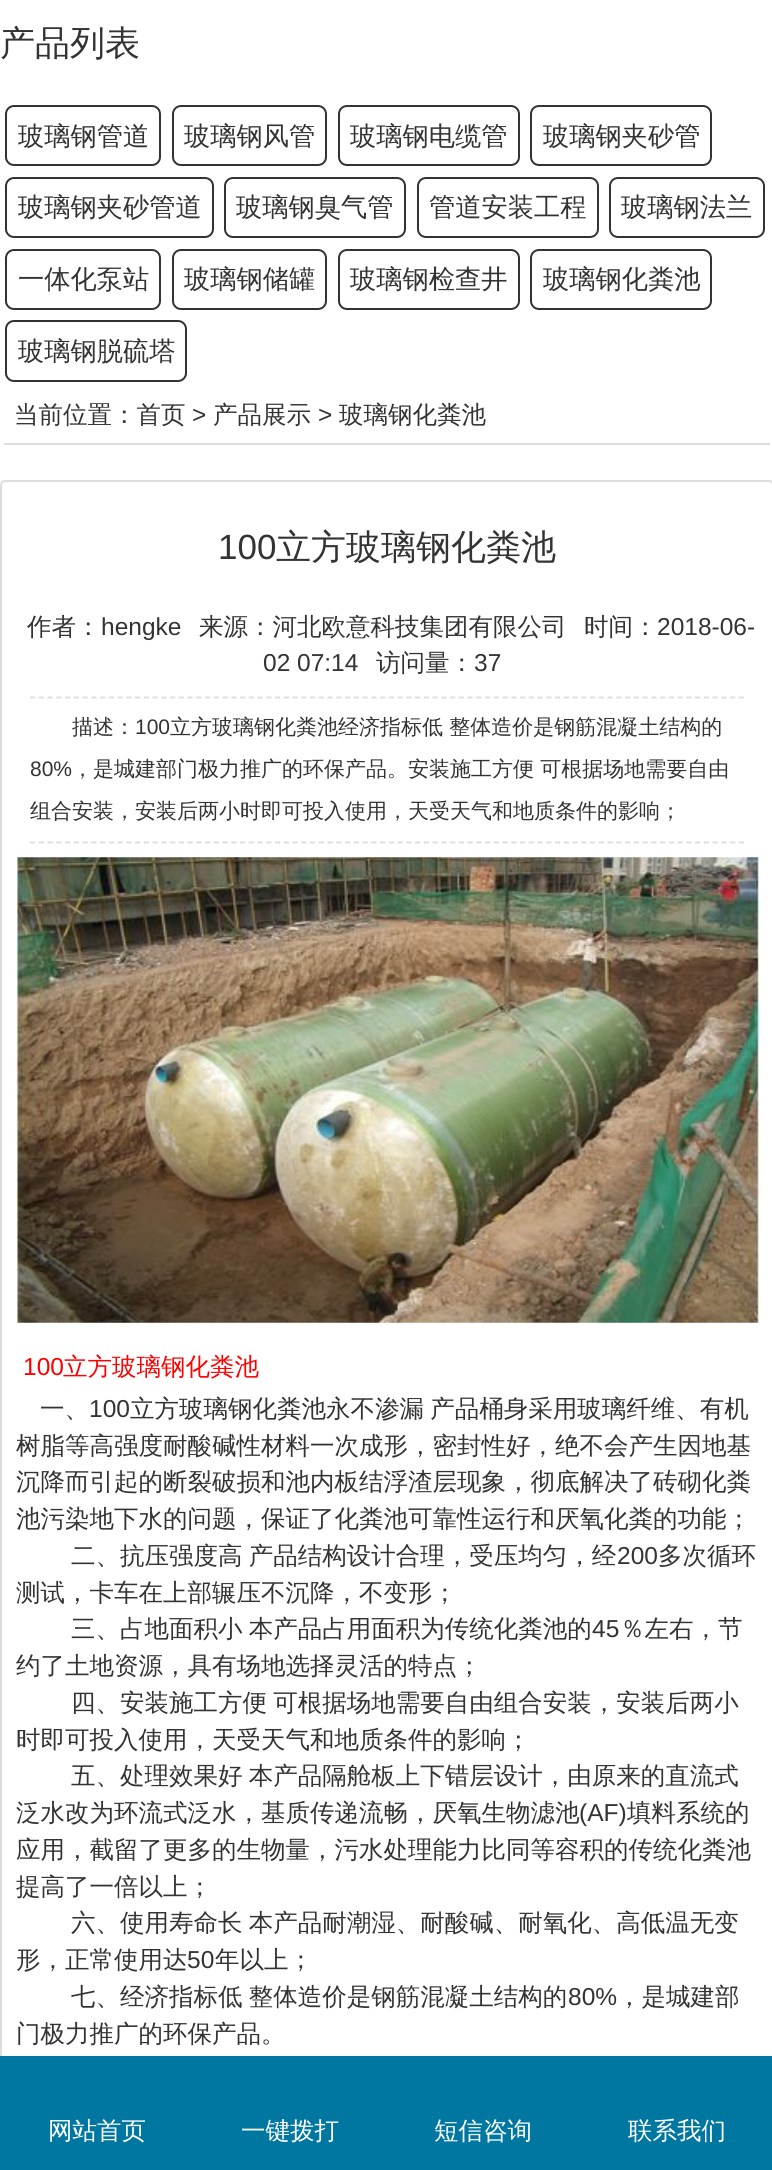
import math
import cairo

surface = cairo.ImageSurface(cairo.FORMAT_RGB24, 772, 2170)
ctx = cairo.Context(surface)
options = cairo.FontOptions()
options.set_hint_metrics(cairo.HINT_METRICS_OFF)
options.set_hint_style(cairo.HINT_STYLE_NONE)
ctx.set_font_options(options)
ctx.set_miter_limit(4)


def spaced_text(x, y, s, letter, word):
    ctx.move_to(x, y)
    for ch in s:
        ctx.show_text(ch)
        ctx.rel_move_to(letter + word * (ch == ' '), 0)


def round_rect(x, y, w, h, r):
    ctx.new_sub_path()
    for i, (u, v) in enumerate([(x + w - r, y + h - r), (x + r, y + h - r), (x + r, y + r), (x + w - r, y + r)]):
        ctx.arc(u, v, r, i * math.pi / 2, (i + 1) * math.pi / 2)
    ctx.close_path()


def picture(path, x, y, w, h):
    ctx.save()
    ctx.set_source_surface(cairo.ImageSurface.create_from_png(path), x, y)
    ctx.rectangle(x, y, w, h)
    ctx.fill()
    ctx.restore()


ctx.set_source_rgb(1, 1, 1)
ctx.paint()
ctx.select_font_face("WenQuanYi Zen Hei Medium")
ctx.set_font_size(35)
ctx.set_source_rgb(0.2, 0.2, 0.2)
ctx.move_to(0, 55)
ctx.show_text("产品列表")
round_rect(6, 106, 154, 59, 8)
ctx.stroke()
ctx.set_font_size(26.25)
ctx.move_to(18, 145)
ctx.show_text("玻璃钢管道")
round_rect(173, 106, 153, 59, 8)
ctx.stroke()
ctx.move_to(184, 145)
ctx.show_text("玻璃钢风管")
round_rect(339, 106, 180, 59, 8)
ctx.stroke()
ctx.move_to(350, 145)
ctx.show_text("玻璃钢电缆管")
round_rect(531, 106, 180, 59, 8)
ctx.stroke()
ctx.move_to(543, 145)
ctx.show_text("玻璃钢夹砂管")
round_rect(6, 178, 207, 59, 8)
ctx.stroke()
ctx.move_to(18, 216)
ctx.show_text("玻璃钢夹砂管道")
round_rect(225, 178, 180, 59, 8)
ctx.stroke()
ctx.move_to(236, 216)
ctx.show_text("玻璃钢臭气管")
round_rect(418, 178, 180, 59, 8)
ctx.stroke()
ctx.move_to(429, 216)
ctx.show_text("管道安装工程")
round_rect(610, 178, 154, 59, 8)
ctx.stroke()
ctx.move_to(621, 216)
ctx.show_text("玻璃钢法兰")
round_rect(6, 250, 154, 59, 8)
ctx.stroke()
ctx.move_to(18, 288)
ctx.show_text("一体化泵站")
round_rect(173, 250, 153, 59, 8)
ctx.stroke()
ctx.move_to(184, 288)
ctx.show_text("玻璃钢储罐")
round_rect(339, 250, 180, 59, 8)
ctx.stroke()
ctx.move_to(350, 288)
ctx.show_text("玻璃钢检查井")
round_rect(531, 250, 180, 59, 8)
ctx.stroke()
ctx.move_to(543, 288)
ctx.show_text("玻璃钢化粪池")
round_rect(6, 321, 180, 60, 8)
ctx.stroke()
ctx.move_to(18, 360)
ctx.show_text("玻璃钢脱硫塔")
ctx.set_source_rgb(0.867, 0.867, 0.867)
ctx.rectangle(4, 443, 766, 2)
ctx.fill()
ctx.set_font_size(24.5)
ctx.set_source_rgb(0.2, 0.2, 0.2)
ctx.move_to(14, 423)
ctx.show_text("当前位置：首页")
ctx.select_font_face("Liberation Sans")
ctx.move_to(192, 423)
ctx.show_text(">")
ctx.select_font_face("WenQuanYi Zen Hei Medium")
ctx.move_to(213, 423)
ctx.show_text("产品展示")
ctx.select_font_face("Liberation Sans")
ctx.move_to(318, 423)
ctx.show_text(">")
ctx.select_font_face("WenQuanYi Zen Hei Medium")
ctx.move_to(339, 423)
ctx.show_text("玻璃钢化粪池")
round_rect(1, 481, 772, 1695, 4)
ctx.set_source_rgb(0.867, 0.867, 0.867)
ctx.stroke()
ctx.select_font_face("Liberation Sans")
ctx.set_font_size(35)
ctx.set_source_rgb(0.2, 0.2, 0.2)
ctx.move_to(218, 559)
ctx.show_text("100")
ctx.select_font_face("WenQuanYi Zen Hei Medium")
ctx.move_to(276, 559)
ctx.show_text("立方玻璃钢化粪池")
ctx.set_font_size(24.5)
ctx.move_to(27, 635)
ctx.show_text("作者：")
ctx.select_font_face("Liberation Sans")
ctx.move_to(101, 635)
ctx.show_text("hengke")
ctx.select_font_face("WenQuanYi Zen Hei Medium")
ctx.move_to(199, 635)
ctx.show_text("来源：河北欧意科技集团有限公司")
ctx.move_to(584, 635)
ctx.show_text("时间：")
ctx.select_font_face("Liberation Sans")
ctx.move_to(657, 635)
ctx.show_text("2018-06-")
ctx.move_to(263, 671)
ctx.show_text("02 07:14")
ctx.select_font_face("WenQuanYi Zen Hei Medium")
ctx.move_to(376, 671)
ctx.show_text("访问量：")
ctx.select_font_face("Liberation Sans")
ctx.move_to(474, 671)
ctx.show_text("37")
ctx.new_path()
ctx.move_to(30, 697.5)
ctx.line_to(744, 697.5)
ctx.set_source_rgb(0.867, 0.867, 0.867)
ctx.set_line_width(1.8)
ctx.set_dash([5.25, 3.5])
ctx.stroke()
ctx.new_path()
ctx.move_to(30, 842.5)
ctx.line_to(744, 842.5)
ctx.stroke()
ctx.select_font_face("WenQuanYi Zen Hei Medium")
ctx.set_font_size(21)
ctx.set_source_rgb(0.2, 0.2, 0.2)
ctx.move_to(72, 734)
ctx.show_text("描述：")
ctx.select_font_face("Liberation Sans")
ctx.move_to(135, 734)
ctx.show_text("100")
ctx.select_font_face("WenQuanYi Zen Hei Medium")
ctx.move_to(170, 734)
ctx.show_text("立方玻璃钢化粪池经济指标低 整体造价是钢筋混凝土结构的")
ctx.select_font_face("Liberation Sans")
ctx.move_to(30, 776)
ctx.show_text("80%")
ctx.select_font_face("WenQuanYi Zen Hei Medium")
ctx.move_to(72, 776)
ctx.show_text("，是城建部门极力推广的环保产品。安装施工方便 可根据场地需要自由")
ctx.move_to(30, 818)
ctx.show_text("组合安装，安装后两小时即可投入使用，天受天气和地质条件的影响；")
picture("img1.png", 15, 857, 746, 466)
ctx.select_font_face("Liberation Sans")
ctx.set_font_size(24.5)
ctx.set_source_rgb(1, 0, 0)
ctx.move_to(23, 1375)
ctx.show_text("100")
ctx.select_font_face("WenQuanYi Zen Hei Medium")
ctx.move_to(63, 1375)
ctx.show_text("立方玻璃钢化粪池")
ctx.set_source_rgb(0.2, 0.2, 0.2)
ctx.move_to(40, 1417)
ctx.show_text("一、")
ctx.select_font_face("Liberation Sans")
ctx.move_to(89, 1417)
ctx.show_text("100")
ctx.select_font_face("WenQuanYi Zen Hei Medium")
ctx.move_to(130, 1417)
ctx.show_text("立方玻璃钢化粪池")
spaced_text(326, 1417, "永不渗漏 产品桶身采用玻璃纤维、有机", 0, -1)
ctx.move_to(16, 1454)
ctx.show_text("树脂等高强度耐酸碱性材料一次成形，密封性好，绝不会产生因地基")
ctx.move_to(16, 1490)
ctx.show_text("沉降而引起的断裂破损和池内板结浮渣层现象，彻底解决了砖砌化粪")
ctx.move_to(16, 1527)
ctx.show_text("池污染地下水的问题，保证了化粪池可靠性运行和厌氧化粪的功能；")
spaced_text(71, 1564, "二、抗压强度高 产品结构设计合理，受压均匀，经", 0, -1)
ctx.select_font_face("Liberation Sans")
ctx.move_to(617, 1564)
ctx.show_text("200")
ctx.select_font_face("WenQuanYi Zen Hei Medium")
ctx.move_to(658, 1564)
ctx.show_text("多次循环")
ctx.move_to(16, 1601)
ctx.show_text("测试，卡车在上部辗压不沉降，不变形；")
spaced_text(71, 1637, "三、占地面积小 本产品占用面积为传统化粪池的", 0, -1)
ctx.select_font_face("Liberation Sans")
ctx.move_to(592, 1637)
ctx.show_text("45")
ctx.select_font_face("WenQuanYi Zen Hei Medium")
ctx.move_to(620, 1637)
ctx.show_text("％左右，节")
ctx.move_to(16, 1674)
ctx.show_text("约了土地资源，具有场地选择灵活的特点；")
spaced_text(71, 1711, "四、安装施工方便 可根据场地需要自由组合安装，安装后两小", 0, -1)
ctx.move_to(16, 1748)
ctx.show_text("时即可投入使用，天受天气和地质条件的影响；")
spaced_text(71, 1784, "五、处理效果好 本产品隔舱板上下错层设计，由原来的直流式", 0, -1)
ctx.move_to(16, 1821)
ctx.show_text("泛水改为环流式泛水，基质传递流畅，厌氧生物滤池")
ctx.select_font_face("Liberation Sans")
ctx.move_to(579, 1821)
ctx.show_text("(AF)")
ctx.select_font_face("WenQuanYi Zen Hei Medium")
ctx.move_to(627, 1821)
ctx.show_text("填料系统的")
ctx.move_to(16, 1858)
ctx.show_text("应用，截留了更多的生物量，污水处理能力比同等容积的传统化粪池")
ctx.move_to(16, 1895)
ctx.show_text("提高了一倍以上；")
spaced_text(71, 1931, "六、使用寿命长 本产品耐潮湿、耐酸碱、耐氧化、高低温无变", 0, -1)
ctx.move_to(16, 1968)
ctx.show_text("形，正常使用达")
ctx.select_font_face("Liberation Sans")
ctx.move_to(187, 1968)
ctx.show_text("50")
ctx.select_font_face("WenQuanYi Zen Hei Medium")
ctx.move_to(215, 1968)
ctx.show_text("年以上；")
spaced_text(71, 2005, "七、经济指标低 整体造价是钢筋混凝土结构的", 0, -1)
ctx.select_font_face("Liberation Sans")
ctx.move_to(568, 2005)
ctx.show_text("80%")
ctx.select_font_face("WenQuanYi Zen Hei Medium")
ctx.move_to(617, 2005)
ctx.show_text("，是城建部")
ctx.move_to(16, 2042)
ctx.show_text("门极力推广的环保产品。")
ctx.set_source_rgb(0, 0.467, 0.631)
ctx.rectangle(0, 2056, 772, 114)
ctx.fill()
ctx.set_source_rgb(1, 1, 1)
ctx.move_to(48, 2139)
ctx.show_text("网站首页")
ctx.move_to(241, 2139)
ctx.show_text("一键拨打")
ctx.move_to(434, 2139)
ctx.show_text("短信咨询")
ctx.move_to(628, 2139)
ctx.show_text("联系我们")
surface.write_to_png("page.png")
